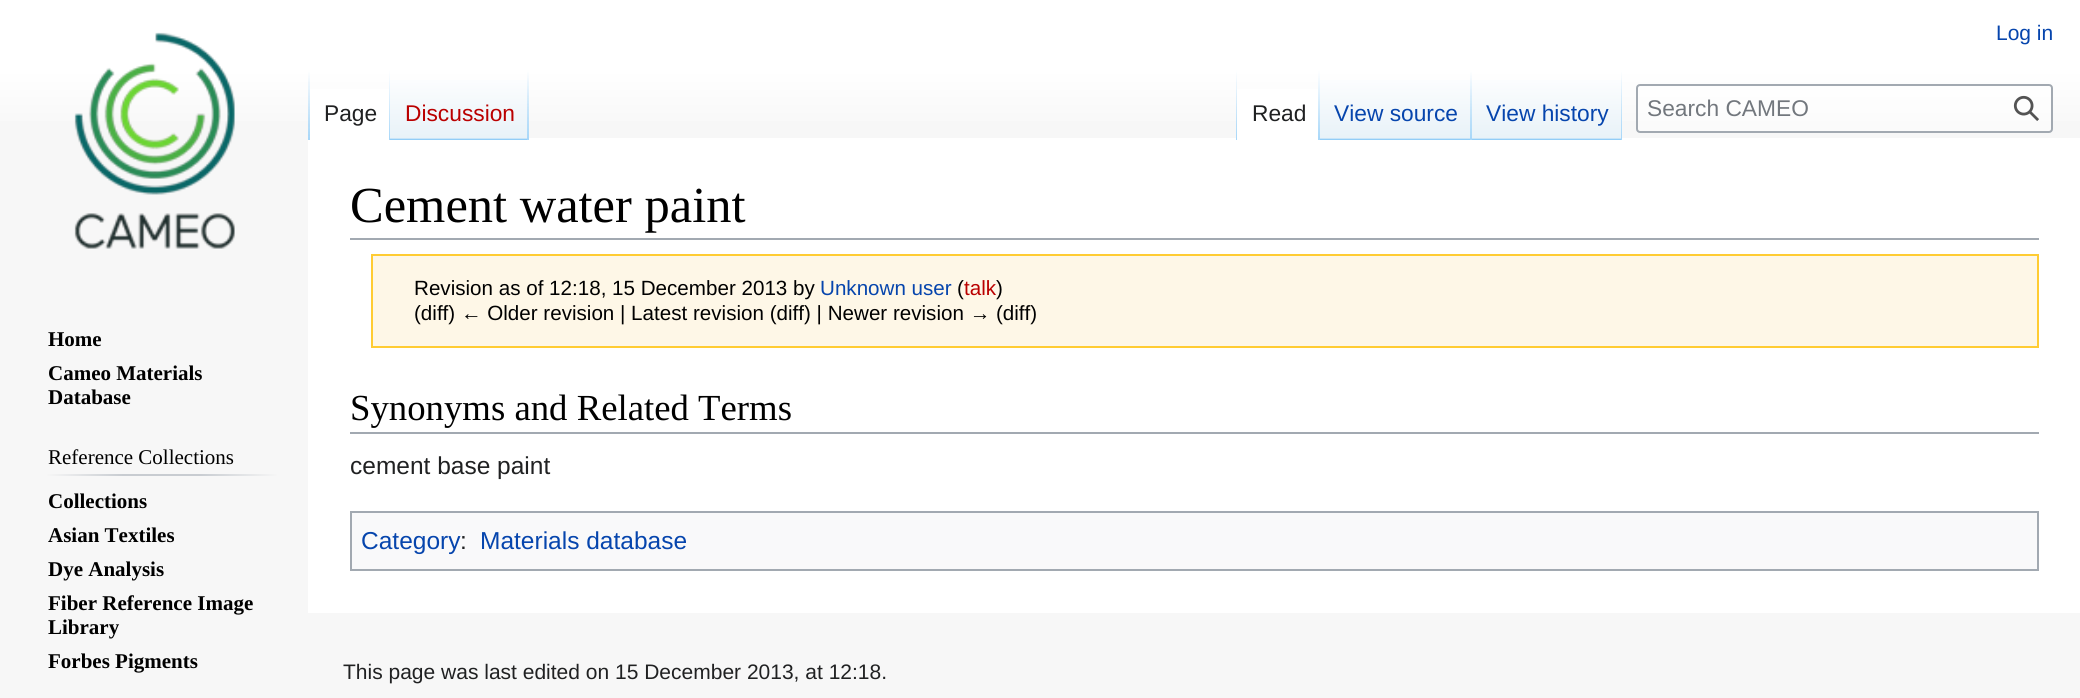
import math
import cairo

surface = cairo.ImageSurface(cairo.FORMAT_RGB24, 2080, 698)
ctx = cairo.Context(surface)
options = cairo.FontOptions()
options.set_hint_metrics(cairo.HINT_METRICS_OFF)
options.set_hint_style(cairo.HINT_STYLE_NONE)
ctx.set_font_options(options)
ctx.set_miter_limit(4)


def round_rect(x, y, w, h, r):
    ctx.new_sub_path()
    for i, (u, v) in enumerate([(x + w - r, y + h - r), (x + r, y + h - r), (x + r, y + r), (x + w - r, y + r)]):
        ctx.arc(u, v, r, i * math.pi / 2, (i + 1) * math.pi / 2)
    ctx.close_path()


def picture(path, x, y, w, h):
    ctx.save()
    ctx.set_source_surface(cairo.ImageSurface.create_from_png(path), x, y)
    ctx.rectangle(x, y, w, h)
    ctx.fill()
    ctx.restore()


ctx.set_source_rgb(0.965, 0.965, 0.965)
ctx.paint()
gradient = cairo.LinearGradient(1040, 0, 1040, 140)
gradient.add_color_stop_rgba(0.5, 1, 1, 1, 1)
gradient.add_color_stop_rgba(1, 0.965, 0.965, 0.965, 1)
ctx.set_source(gradient)
ctx.rectangle(0, 0, 2080, 121)
ctx.fill()
ctx.select_font_face("Liberation Sans")
ctx.set_font_size(21)
ctx.set_source_rgb(0.024, 0.271, 0.678)
ctx.move_to(1996, 40)
ctx.show_text("Log in")
ctx.set_source_rgb(1, 1, 1)
ctx.rectangle(308, 138, 1772, 475)
ctx.fill()
gradient = cairo.LinearGradient(309, 70, 309, 140)
gradient.add_color_stop_rgba(0, 0.655, 0.843, 0.976, 0)
gradient.add_color_stop_rgba(1, 0.655, 0.843, 0.976, 1)
ctx.set_source(gradient)
ctx.rectangle(308, 70, 2, 70)
ctx.fill()
ctx.set_source_rgb(1, 1, 1)
ctx.rectangle(310, 89, 79, 49)
ctx.fill()
gradient = cairo.LinearGradient(389, 70, 389, 140)
gradient.add_color_stop_rgba(0, 1, 1, 1, 1)
gradient.add_color_stop_rgba(1, 0.655, 0.843, 0.976, 1)
ctx.set_source(gradient)
ctx.rectangle(389, 70, 1, 70)
ctx.fill()
ctx.set_font_size(22.75)
ctx.set_source_rgb(0.125, 0.129, 0.133)
ctx.move_to(324, 121)
ctx.show_text("Page")
gradient = cairo.LinearGradient(459, 140, 459, 70)
gradient.add_color_stop_rgba(0, 0.467, 0.757, 0.965, 1)
gradient.add_color_stop_rgba(0.03, 0.91, 0.949, 0.973, 1)
gradient.add_color_stop_rgba(1, 1, 1, 1, 1)
ctx.set_source(gradient)
ctx.rectangle(390, 80, 139, 60)
ctx.fill()
gradient = cairo.LinearGradient(528, 70, 528, 140)
gradient.add_color_stop_rgba(0, 0.655, 0.843, 0.976, 0)
gradient.add_color_stop_rgba(1, 0.655, 0.843, 0.976, 1)
ctx.set_source(gradient)
ctx.rectangle(527, 70, 2, 70)
ctx.fill()
ctx.set_source_rgb(0.729, 0, 0)
ctx.move_to(405, 121)
ctx.show_text("Discussion")
gradient = cairo.LinearGradient(1236, 70, 1236, 140)
gradient.add_color_stop_rgba(0, 0.655, 0.843, 0.976, 0)
gradient.add_color_stop_rgba(1, 0.655, 0.843, 0.976, 1)
ctx.set_source(gradient)
ctx.rectangle(1236, 70, 1, 70)
ctx.fill()
ctx.set_source_rgb(1, 1, 1)
ctx.rectangle(1237, 89, 81, 49)
ctx.fill()
gradient = cairo.LinearGradient(1319, 70, 1319, 140)
gradient.add_color_stop_rgba(0, 1, 1, 1, 1)
gradient.add_color_stop_rgba(1, 0.655, 0.843, 0.976, 1)
ctx.set_source(gradient)
ctx.rectangle(1318, 70, 2, 70)
ctx.fill()
ctx.set_source_rgb(0.125, 0.129, 0.133)
ctx.move_to(1252, 121)
ctx.show_text("Read")
gradient = cairo.LinearGradient(1396, 140, 1396, 70)
gradient.add_color_stop_rgba(0, 0.467, 0.757, 0.965, 1)
gradient.add_color_stop_rgba(0.03, 0.91, 0.949, 0.973, 1)
gradient.add_color_stop_rgba(1, 1, 1, 1, 1)
ctx.set_source(gradient)
ctx.rectangle(1320, 80, 152, 60)
ctx.fill()
gradient = cairo.LinearGradient(1471, 70, 1471, 140)
gradient.add_color_stop_rgba(0, 0.655, 0.843, 0.976, 0)
gradient.add_color_stop_rgba(1, 0.655, 0.843, 0.976, 1)
ctx.set_source(gradient)
ctx.rectangle(1470, 70, 2, 70)
ctx.fill()
ctx.set_source_rgb(0.024, 0.271, 0.678)
ctx.move_to(1334, 121)
ctx.show_text("View source")
gradient = cairo.LinearGradient(1547, 140, 1547, 70)
gradient.add_color_stop_rgba(0, 0.467, 0.757, 0.965, 1)
gradient.add_color_stop_rgba(0.03, 0.91, 0.949, 0.973, 1)
gradient.add_color_stop_rgba(1, 1, 1, 1, 1)
ctx.set_source(gradient)
ctx.rectangle(1472, 80, 150, 60)
ctx.fill()
gradient = cairo.LinearGradient(1621, 70, 1621, 140)
gradient.add_color_stop_rgba(0, 0.655, 0.843, 0.976, 0)
gradient.add_color_stop_rgba(1, 0.655, 0.843, 0.976, 1)
ctx.set_source(gradient)
ctx.rectangle(1621, 70, 1, 70)
ctx.fill()
ctx.set_source_rgb(0.024, 0.271, 0.678)
ctx.move_to(1486, 121)
ctx.show_text("View history")
ctx.set_source_rgba(1, 1, 1, 0.5)
round_rect(1637, 85, 415, 47, 3)
ctx.fill_preserve()
ctx.set_source_rgb(0.635, 0.663, 0.694)
ctx.stroke()
ctx.set_source_rgb(0.447, 0.467, 0.49)
ctx.move_to(1647, 116)
ctx.show_text("Search CAMEO")
picture("img1.png", 2013, 95, 26, 26)
picture("img2.png", 74, 32, 161, 217)
ctx.select_font_face("Liberation Serif", cairo.FONT_SLANT_NORMAL, cairo.FONT_WEIGHT_BOLD)
ctx.set_font_size(21)
ctx.set_source_rgb(0, 0, 0)
ctx.move_to(48, 346)
ctx.show_text("Home")
ctx.move_to(48, 380)
ctx.show_text("Cameo Materials")
ctx.move_to(48, 404)
ctx.show_text("Database")
gradient = cairo.LinearGradient(47, 475, 277, 475)
gradient.add_color_stop_rgba(0, 0.965, 0.965, 0.965, 1)
gradient.add_color_stop_rgba(0.33, 0.784, 0.8, 0.82, 1)
gradient.add_color_stop_rgba(0.66, 0.784, 0.8, 0.82, 1)
gradient.add_color_stop_rgba(1, 0.965, 0.965, 0.965, 1)
ctx.set_source(gradient)
ctx.rectangle(47, 474, 230, 2)
ctx.fill()
ctx.select_font_face("Liberation Serif")
ctx.set_source_rgb(0, 0, 0)
ctx.move_to(48, 464)
ctx.show_text("Reference Collections")
ctx.select_font_face("Liberation Serif", cairo.FONT_SLANT_NORMAL, cairo.FONT_WEIGHT_BOLD)
ctx.move_to(48, 508)
ctx.show_text("Collections")
ctx.move_to(48, 542)
ctx.show_text("Asian Textiles")
ctx.move_to(48, 576)
ctx.show_text("Dye Analysis")
ctx.move_to(48, 610)
ctx.show_text("Fiber Reference Image")
ctx.move_to(48, 634)
ctx.show_text("Library")
ctx.move_to(48, 668)
ctx.show_text("Forbes Pigments")
ctx.set_source_rgb(0.635, 0.663, 0.694)
ctx.rectangle(350, 238, 1689, 2)
ctx.fill()
ctx.select_font_face("Liberation Serif")
ctx.set_font_size(50.5)
ctx.set_source_rgb(0, 0, 0)
ctx.move_to(350, 222)
ctx.show_text("Cement water paint")
ctx.set_source_rgb(0.996, 0.965, 0.906)
ctx.rectangle(372, 255, 1666, 92)
ctx.fill_preserve()
ctx.set_source_rgb(1, 0.8, 0.2)
ctx.stroke()
ctx.select_font_face("Liberation Sans")
ctx.set_font_size(20.6)
ctx.set_source_rgb(0, 0, 0)
ctx.move_to(414, 295)
ctx.show_text("Revision as of 12:18, 15 December 2013 by")
ctx.set_source_rgb(0.024, 0.271, 0.678)
ctx.move_to(820, 295)
ctx.show_text("Unknown user")
ctx.set_source_rgb(0, 0, 0)
ctx.move_to(957, 295)
ctx.show_text("(")
ctx.set_source_rgb(0.729, 0, 0)
ctx.move_to(964, 295)
ctx.show_text("talk")
ctx.set_source_rgb(0, 0, 0)
ctx.move_to(996, 295)
ctx.show_text(")")
ctx.move_to(414, 320)
ctx.show_text("(diff) ← Older revision | Latest revision (diff) | Newer revision → (diff)")
ctx.set_source_rgb(0.635, 0.663, 0.694)
ctx.rectangle(350, 432, 1689, 2)
ctx.fill()
ctx.select_font_face("Liberation Serif")
ctx.set_font_size(36.75)
ctx.set_source_rgb(0, 0, 0)
ctx.move_to(350, 420)
ctx.show_text("Synonyms and Related Terms")
ctx.select_font_face("Liberation Sans")
ctx.set_font_size(24.5)
ctx.set_source_rgb(0.125, 0.129, 0.133)
ctx.move_to(350, 474)
ctx.show_text("cement base paint")
ctx.set_source_rgb(0.973, 0.976, 0.98)
ctx.rectangle(351, 512, 1687, 58)
ctx.fill_preserve()
ctx.set_source_rgb(0.635, 0.663, 0.694)
ctx.stroke()
ctx.set_source_rgb(0.024, 0.271, 0.678)
ctx.move_to(361, 549)
ctx.show_text("Category")
ctx.set_source_rgb(0.125, 0.129, 0.133)
ctx.move_to(460, 549)
ctx.show_text(":")
ctx.set_source_rgb(0.024, 0.271, 0.678)
ctx.move_to(480, 549)
ctx.show_text("Materials database")
ctx.set_font_size(21)
ctx.set_source_rgb(0.125, 0.129, 0.133)
ctx.move_to(343, 679)
ctx.show_text("This page was last edited on 15 December 2013, at 12:18.")
surface.write_to_png("page.png")
